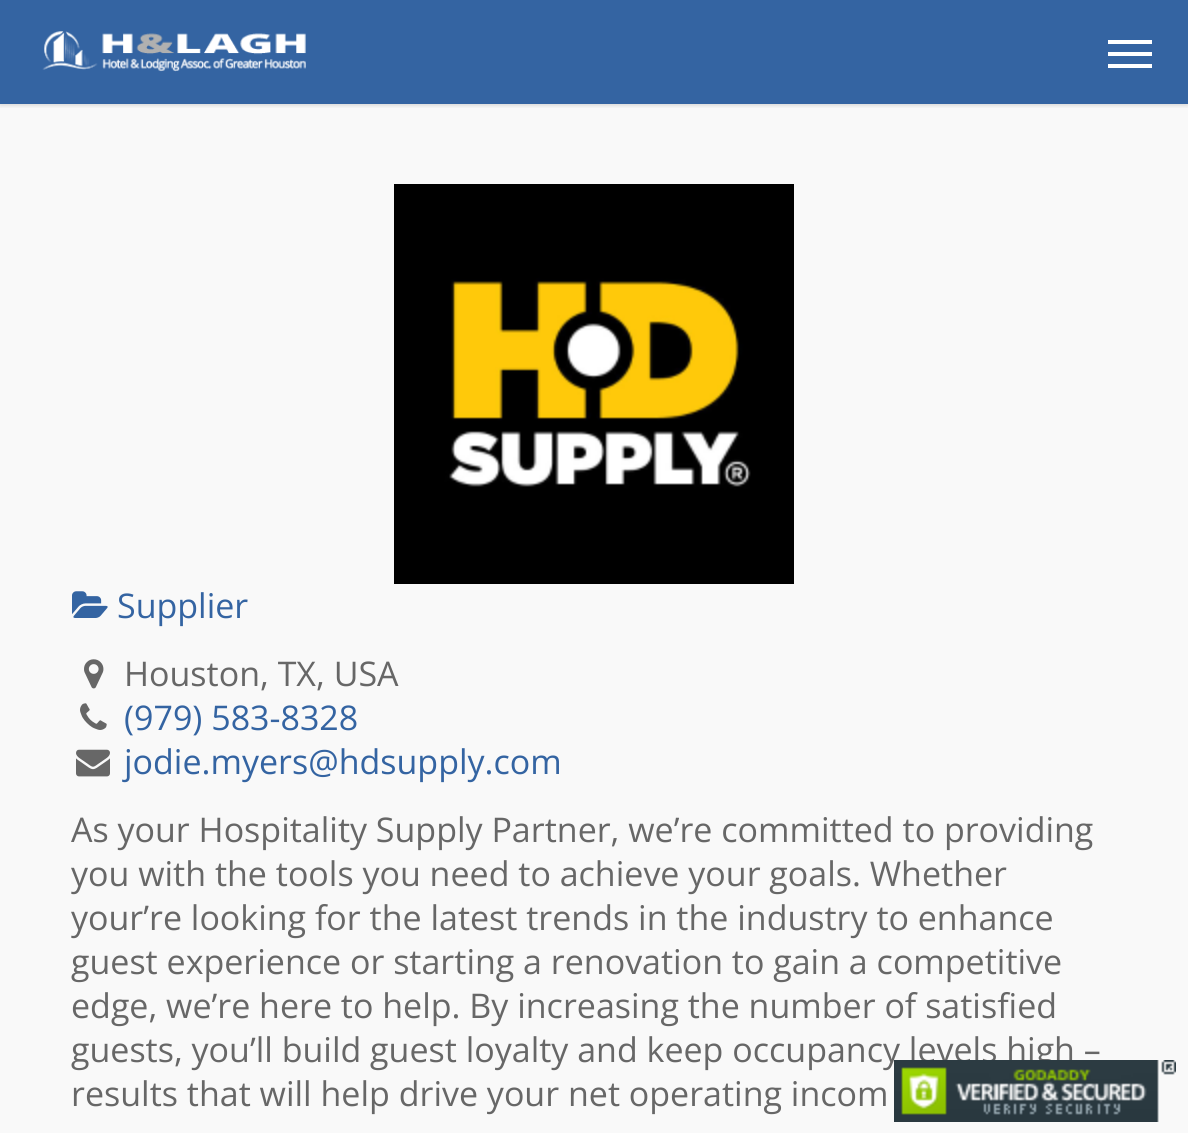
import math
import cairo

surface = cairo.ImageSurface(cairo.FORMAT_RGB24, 1188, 1133)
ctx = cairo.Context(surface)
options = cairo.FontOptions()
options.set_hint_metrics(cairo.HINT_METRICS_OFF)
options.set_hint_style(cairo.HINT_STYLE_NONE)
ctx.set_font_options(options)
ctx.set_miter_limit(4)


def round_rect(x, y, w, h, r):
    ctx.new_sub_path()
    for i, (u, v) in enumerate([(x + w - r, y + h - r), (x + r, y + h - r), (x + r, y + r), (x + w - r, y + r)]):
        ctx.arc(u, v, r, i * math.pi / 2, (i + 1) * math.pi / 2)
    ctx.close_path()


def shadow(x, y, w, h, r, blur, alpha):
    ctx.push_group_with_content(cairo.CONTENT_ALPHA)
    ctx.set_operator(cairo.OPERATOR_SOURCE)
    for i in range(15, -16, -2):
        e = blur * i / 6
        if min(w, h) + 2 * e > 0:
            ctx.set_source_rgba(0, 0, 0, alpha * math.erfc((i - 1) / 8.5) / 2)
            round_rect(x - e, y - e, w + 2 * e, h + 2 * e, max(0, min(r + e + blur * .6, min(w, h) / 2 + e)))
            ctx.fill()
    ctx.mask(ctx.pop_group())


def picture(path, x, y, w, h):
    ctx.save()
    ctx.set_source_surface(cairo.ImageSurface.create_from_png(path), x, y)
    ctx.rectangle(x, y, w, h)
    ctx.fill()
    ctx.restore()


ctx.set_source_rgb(0.204, 0.392, 0.635)
ctx.paint()
ctx.set_source_rgb(0.973, 0.973, 0.973)
ctx.rectangle(0, 104, 1188, 1029)
ctx.fill()
ctx.save()
ctx.rectangle(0, 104, 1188, 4)
ctx.clip()
ctx.set_source_rgb(0, 0, 0)
shadow(0, 0, 1188, 104, 0, 3, 0.22)
ctx.restore()
picture("img1.png", 42, 31, 264, 41)
ctx.set_source_rgb(1, 1, 1)
ctx.rectangle(1108, 40, 44, 4)
ctx.fill()
ctx.rectangle(1108, 64, 44, 4)
ctx.fill()
ctx.rectangle(1108, 52, 44, 4)
ctx.fill()
picture("img2.png", 394, 184, 400, 400)
picture("img3.png", 72, 591, 36, 27)
ctx.select_font_face("Open Sans")
ctx.set_font_size(34)
ctx.set_source_rgb(0.204, 0.392, 0.635)
ctx.move_to(117, 618)
ctx.show_text("Supplier")
picture("img4.png", 84, 659, 20, 30)
ctx.set_source_rgb(0.404, 0.404, 0.404)
ctx.move_to(124, 686)
ctx.show_text("Houston, TX, USA")
picture("img5.png", 80, 703, 27, 27)
ctx.set_source_rgb(0.204, 0.392, 0.635)
ctx.move_to(124, 730)
ctx.show_text("(979) 583-8328")
picture("img6.png", 76, 749, 34, 28)
ctx.move_to(124, 774)
ctx.show_text("jodie.myers@hdsupply.com")
ctx.set_source_rgb(0.404, 0.404, 0.404)
ctx.move_to(71, 842)
ctx.show_text("As your Hospitality Supply Partner, we’re committed to providing")
ctx.move_to(71, 886)
ctx.show_text("you with the tools you need to achieve your goals. Whether")
ctx.move_to(71, 930)
ctx.show_text("your’re looking for the latest trends in the industry to enhance")
ctx.move_to(71, 974)
ctx.show_text("guest experience or starting a renovation to gain a competitive")
ctx.move_to(71, 1018)
ctx.show_text("edge, we’re here to help. By increasing the number of satisfied")
ctx.move_to(71, 1062)
ctx.show_text("guests, you’ll build guest loyalty and keep occupancy levels high –")
ctx.move_to(71, 1106)
ctx.show_text("results that will help drive your net operating incom")
picture("img7.png", 894, 1060, 282, 62)
surface.write_to_png("page.png")
